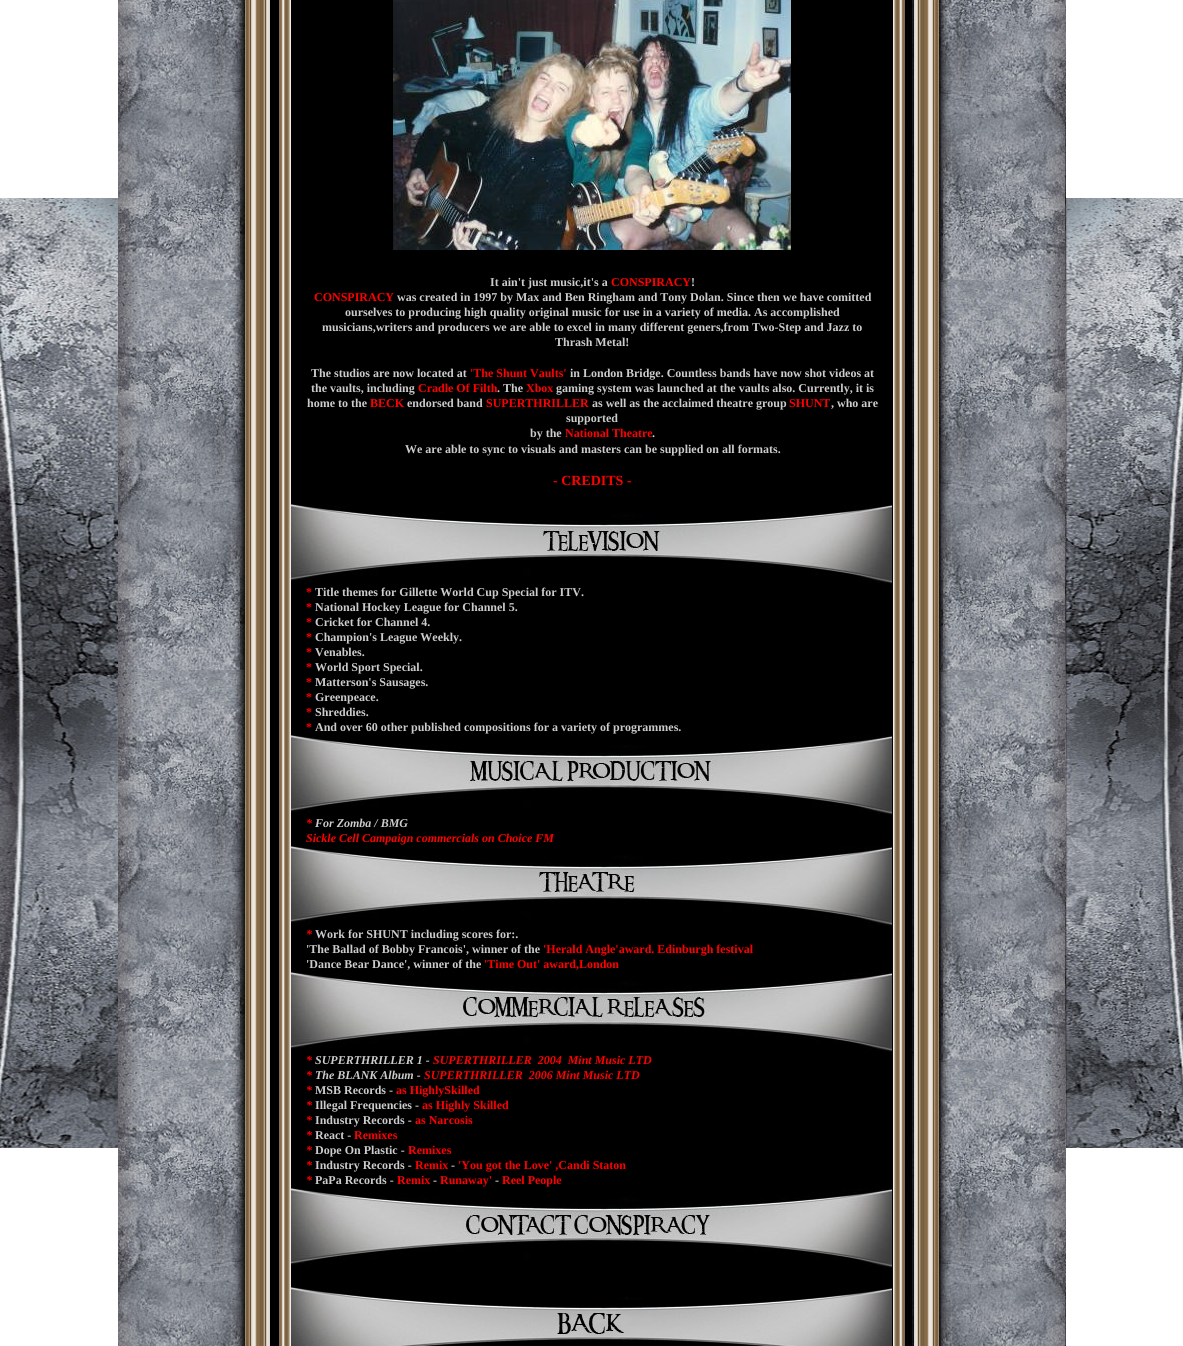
import math
import cairo

surface = cairo.ImageSurface(cairo.FORMAT_RGB24, 1183, 1346)
ctx = cairo.Context(surface)
options = cairo.FontOptions()
options.set_hint_metrics(cairo.HINT_METRICS_OFF)
options.set_hint_style(cairo.HINT_STYLE_NONE)
ctx.set_font_options(options)
ctx.set_miter_limit(4)


def picture(path, x, y, w, h):
    ctx.save()
    ctx.set_source_surface(cairo.ImageSurface.create_from_png(path), x, y)
    ctx.rectangle(x, y, w, h)
    ctx.fill()
    ctx.restore()


ctx.set_source_rgb(1, 1, 1)
ctx.paint()
picture("img1.png", 0, 198, 1183, 950)
picture("img2.png", 118, 0, 948, 1346)
picture("img3.png", 393, 0, 398, 250)
ctx.select_font_face("Liberation Serif", cairo.FONT_SLANT_NORMAL, cairo.FONT_WEIGHT_BOLD)
ctx.set_font_size(12)
ctx.set_source_rgb(0.8, 0.8, 0.8)
ctx.move_to(490, 286)
ctx.show_text("It ain't just music,it's a")
ctx.set_source_rgb(1, 0, 0)
ctx.move_to(611, 286)
ctx.show_text("CONSPIRACY")
ctx.set_source_rgb(0.8, 0.8, 0.8)
ctx.move_to(691, 286)
ctx.show_text("!")
ctx.set_source_rgb(1, 0, 0)
ctx.move_to(314, 301)
ctx.show_text("CONSPIRACY")
ctx.set_source_rgb(0.8, 0.8, 0.8)
ctx.move_to(397, 301)
ctx.show_text("was created in 1997 by Max and Ben Ringham and Tony Dolan. Since then we have comitted")
ctx.move_to(345, 316)
ctx.show_text("ourselves to producing high quality original music for use in a variety of media. As accomplished")
ctx.move_to(322, 331)
ctx.show_text("musicians,writers and producers we are able to excel in many different geners,from Two-Step and Jazz to")
ctx.move_to(555, 346)
ctx.show_text("Thrash Metal!")
ctx.move_to(311, 377)
ctx.show_text("The studios are now located at")
ctx.set_source_rgb(1, 0, 0)
ctx.move_to(470, 377)
ctx.show_text("'The Shunt Vaults'")
ctx.set_source_rgb(0.8, 0.8, 0.8)
ctx.move_to(570, 377)
ctx.show_text("in London Bridge. Countless bands have now shot videos at")
ctx.move_to(311, 392)
ctx.show_text("the vaults, including")
ctx.set_source_rgb(1, 0, 0)
ctx.move_to(418, 392)
ctx.show_text("Cradle Of Filth")
ctx.set_source_rgb(0.8, 0.8, 0.8)
ctx.move_to(497, 392)
ctx.show_text(". The")
ctx.set_source_rgb(1, 0, 0)
ctx.move_to(526, 392)
ctx.show_text("Xbox")
ctx.set_source_rgb(0.8, 0.8, 0.8)
ctx.move_to(556, 392)
ctx.show_text("gaming system was launched at the vaults also. Currently, it is")
ctx.move_to(307, 407)
ctx.show_text("home to the")
ctx.set_source_rgb(1, 0, 0)
ctx.move_to(370, 407)
ctx.show_text("BECK")
ctx.set_source_rgb(0.8, 0.8, 0.8)
ctx.move_to(407, 407)
ctx.show_text("endorsed band")
ctx.set_source_rgb(1, 0, 0)
ctx.move_to(486, 407)
ctx.show_text("SUPERTHRILLER")
ctx.set_source_rgb(0.8, 0.8, 0.8)
ctx.move_to(592, 407)
ctx.show_text("as well as the acclaimed theatre group")
ctx.set_source_rgb(1, 0, 0)
ctx.move_to(789, 407)
ctx.show_text("SHUNT")
ctx.set_source_rgb(0.8, 0.8, 0.8)
ctx.move_to(831, 407)
ctx.show_text(", who are")
ctx.move_to(566, 422)
ctx.show_text("supported")
ctx.move_to(530, 437)
ctx.show_text("by the")
ctx.set_source_rgb(1, 0, 0)
ctx.move_to(565, 437)
ctx.show_text("National Theatre")
ctx.set_source_rgb(0.8, 0.8, 0.8)
ctx.move_to(652, 437)
ctx.show_text(".")
ctx.move_to(405, 453)
ctx.show_text("We are able to sync to visuals and masters can be supplied on all formats.")
ctx.set_font_size(14)
ctx.set_source_rgb(1, 0, 0)
ctx.move_to(553, 485)
ctx.show_text("- CREDITS -")
picture("img4.png", 291, 504, 601, 80)
ctx.set_font_size(12)
ctx.move_to(306, 596)
ctx.show_text("*")
ctx.set_source_rgb(0.8, 0.8, 0.8)
ctx.move_to(315, 596)
ctx.show_text("Title themes for Gillette World Cup Special for ITV.")
ctx.set_source_rgb(1, 0, 0)
ctx.move_to(306, 611)
ctx.show_text("*")
ctx.set_source_rgb(0.8, 0.8, 0.8)
ctx.move_to(315, 611)
ctx.show_text("National Hockey League for Channel 5.")
ctx.set_source_rgb(1, 0, 0)
ctx.move_to(306, 626)
ctx.show_text("*")
ctx.set_source_rgb(0.8, 0.8, 0.8)
ctx.move_to(315, 626)
ctx.show_text("Cricket for Channel 4.")
ctx.set_source_rgb(1, 0, 0)
ctx.move_to(306, 641)
ctx.show_text("*")
ctx.set_source_rgb(0.8, 0.8, 0.8)
ctx.move_to(315, 641)
ctx.show_text("Champion's League Weekly.")
ctx.set_source_rgb(1, 0, 0)
ctx.move_to(306, 656)
ctx.show_text("*")
ctx.set_source_rgb(0.8, 0.8, 0.8)
ctx.move_to(315, 656)
ctx.show_text("Venables.")
ctx.set_source_rgb(1, 0, 0)
ctx.move_to(306, 671)
ctx.show_text("*")
ctx.set_source_rgb(0.8, 0.8, 0.8)
ctx.move_to(315, 671)
ctx.show_text("World Sport Special.")
ctx.set_source_rgb(1, 0, 0)
ctx.move_to(306, 686)
ctx.show_text("*")
ctx.set_source_rgb(0.8, 0.8, 0.8)
ctx.move_to(315, 686)
ctx.show_text("Matterson's Sausages.")
ctx.set_source_rgb(1, 0, 0)
ctx.move_to(306, 701)
ctx.show_text("*")
ctx.set_source_rgb(0.8, 0.8, 0.8)
ctx.move_to(315, 701)
ctx.show_text("Greenpeace.")
ctx.set_source_rgb(1, 0, 0)
ctx.move_to(306, 716)
ctx.show_text("*")
ctx.set_source_rgb(0.8, 0.8, 0.8)
ctx.move_to(315, 716)
ctx.show_text("Shreddies.")
ctx.set_source_rgb(1, 0, 0)
ctx.move_to(306, 731)
ctx.show_text("*")
ctx.set_source_rgb(0.8, 0.8, 0.8)
ctx.move_to(315, 731)
ctx.show_text("And over 60 other published compositions for a variety of programmes.")
picture("img5.png", 291, 735, 601, 80)
ctx.select_font_face("Liberation Serif", cairo.FONT_SLANT_ITALIC, cairo.FONT_WEIGHT_BOLD)
ctx.set_source_rgb(1, 0, 0)
ctx.move_to(306, 827)
ctx.show_text("*")
ctx.set_source_rgb(0.8, 0.8, 0.8)
ctx.move_to(315, 827)
ctx.show_text("For Zomba / BMG")
ctx.set_source_rgb(1, 0, 0)
ctx.move_to(306, 842)
ctx.show_text("Sickle Cell Campaign commercials on Choice FM")
picture("img6.png", 291, 846, 601, 80)
ctx.move_to(306, 938)
ctx.show_text("*")
ctx.select_font_face("Liberation Serif", cairo.FONT_SLANT_NORMAL, cairo.FONT_WEIGHT_BOLD)
ctx.set_source_rgb(0.8, 0.8, 0.8)
ctx.move_to(315, 938)
ctx.show_text("Work for SHUNT including scores for:.")
ctx.move_to(306, 953)
ctx.show_text("'The Ballad of Bobby Francois', winner of the")
ctx.set_source_rgb(1, 0, 0)
ctx.move_to(543, 953)
ctx.show_text("'Herald Angle'award. Edinburgh festival")
ctx.set_source_rgb(0.8, 0.8, 0.8)
ctx.move_to(306, 968)
ctx.show_text("'Dance Bear Dance', winner of the")
ctx.set_source_rgb(1, 0, 0)
ctx.move_to(484, 968)
ctx.show_text("'Time Out' award,London")
picture("img7.png", 291, 972, 601, 80)
ctx.select_font_face("Liberation Serif", cairo.FONT_SLANT_ITALIC, cairo.FONT_WEIGHT_BOLD)
ctx.move_to(306, 1064)
ctx.show_text("*")
ctx.set_source_rgb(0.8, 0.8, 0.8)
ctx.move_to(315, 1064)
ctx.show_text("SUPERTHRILLER 1 -")
ctx.set_source_rgb(1, 0, 0)
ctx.move_to(433, 1064)
ctx.show_text("SUPERTHRILLER  2004  Mint Music LTD")
ctx.move_to(306, 1079)
ctx.show_text("*")
ctx.set_source_rgb(0.8, 0.8, 0.8)
ctx.move_to(315, 1079)
ctx.show_text("The BLANK Album -")
ctx.set_source_rgb(1, 0, 0)
ctx.move_to(424, 1079)
ctx.show_text("SUPERTHRILLER  2006 Mint Music LTD")
ctx.move_to(306, 1094)
ctx.show_text("*")
ctx.select_font_face("Liberation Serif", cairo.FONT_SLANT_NORMAL, cairo.FONT_WEIGHT_BOLD)
ctx.set_source_rgb(0.8, 0.8, 0.8)
ctx.move_to(315, 1094)
ctx.show_text("MSB Records -")
ctx.set_source_rgb(1, 0, 0)
ctx.move_to(396, 1094)
ctx.show_text("as HighlySkilled")
ctx.select_font_face("Liberation Serif", cairo.FONT_SLANT_ITALIC, cairo.FONT_WEIGHT_BOLD)
ctx.move_to(306, 1109)
ctx.show_text("*")
ctx.select_font_face("Liberation Serif", cairo.FONT_SLANT_NORMAL, cairo.FONT_WEIGHT_BOLD)
ctx.set_source_rgb(0.8, 0.8, 0.8)
ctx.move_to(315, 1109)
ctx.show_text("Illegal Frequencies -")
ctx.set_source_rgb(1, 0, 0)
ctx.move_to(422, 1109)
ctx.show_text("as Highly Skilled")
ctx.select_font_face("Liberation Serif", cairo.FONT_SLANT_ITALIC, cairo.FONT_WEIGHT_BOLD)
ctx.move_to(306, 1124)
ctx.show_text("*")
ctx.select_font_face("Liberation Serif", cairo.FONT_SLANT_NORMAL, cairo.FONT_WEIGHT_BOLD)
ctx.set_source_rgb(0.8, 0.8, 0.8)
ctx.move_to(315, 1124)
ctx.show_text("Industry Records -")
ctx.set_source_rgb(1, 0, 0)
ctx.move_to(415, 1124)
ctx.show_text("as Narcosis")
ctx.select_font_face("Liberation Serif", cairo.FONT_SLANT_ITALIC, cairo.FONT_WEIGHT_BOLD)
ctx.move_to(306, 1139)
ctx.show_text("*")
ctx.select_font_face("Liberation Serif", cairo.FONT_SLANT_NORMAL, cairo.FONT_WEIGHT_BOLD)
ctx.set_source_rgb(0.8, 0.8, 0.8)
ctx.move_to(315, 1139)
ctx.show_text("React -")
ctx.set_source_rgb(1, 0, 0)
ctx.move_to(354, 1139)
ctx.show_text("Remixes")
ctx.select_font_face("Liberation Serif", cairo.FONT_SLANT_ITALIC, cairo.FONT_WEIGHT_BOLD)
ctx.move_to(306, 1154)
ctx.show_text("*")
ctx.select_font_face("Liberation Serif", cairo.FONT_SLANT_NORMAL, cairo.FONT_WEIGHT_BOLD)
ctx.set_source_rgb(0.8, 0.8, 0.8)
ctx.move_to(315, 1154)
ctx.show_text("Dope On Plastic -")
ctx.set_source_rgb(1, 0, 0)
ctx.move_to(408, 1154)
ctx.show_text("Remixes")
ctx.select_font_face("Liberation Serif", cairo.FONT_SLANT_ITALIC, cairo.FONT_WEIGHT_BOLD)
ctx.move_to(306, 1169)
ctx.show_text("*")
ctx.select_font_face("Liberation Serif", cairo.FONT_SLANT_NORMAL, cairo.FONT_WEIGHT_BOLD)
ctx.set_source_rgb(0.8, 0.8, 0.8)
ctx.move_to(315, 1169)
ctx.show_text("Industry Records -")
ctx.set_source_rgb(1, 0, 0)
ctx.move_to(415, 1169)
ctx.show_text("Remix")
ctx.set_source_rgb(0.8, 0.8, 0.8)
ctx.move_to(451, 1169)
ctx.show_text("-")
ctx.set_source_rgb(1, 0, 0)
ctx.move_to(458, 1169)
ctx.show_text("'You got the Love' ,Candi Staton")
ctx.select_font_face("Liberation Serif", cairo.FONT_SLANT_ITALIC, cairo.FONT_WEIGHT_BOLD)
ctx.move_to(306, 1184)
ctx.show_text("*")
ctx.select_font_face("Liberation Serif", cairo.FONT_SLANT_NORMAL, cairo.FONT_WEIGHT_BOLD)
ctx.set_source_rgb(0.8, 0.8, 0.8)
ctx.move_to(315, 1184)
ctx.show_text("PaPa Records -")
ctx.set_source_rgb(1, 0, 0)
ctx.move_to(397, 1184)
ctx.show_text("Remix")
ctx.set_source_rgb(0.8, 0.8, 0.8)
ctx.move_to(433, 1184)
ctx.show_text("-")
ctx.set_source_rgb(1, 0, 0)
ctx.move_to(440, 1184)
ctx.show_text("Runaway'")
ctx.set_source_rgb(0.8, 0.8, 0.8)
ctx.move_to(495, 1184)
ctx.show_text("-")
ctx.set_source_rgb(1, 0, 0)
ctx.move_to(502, 1184)
ctx.show_text("Reel People")
picture("img8.png", 291, 1188, 601, 80)
picture("img9.png", 291, 1287, 601, 59)
surface.write_to_png("page.png")
